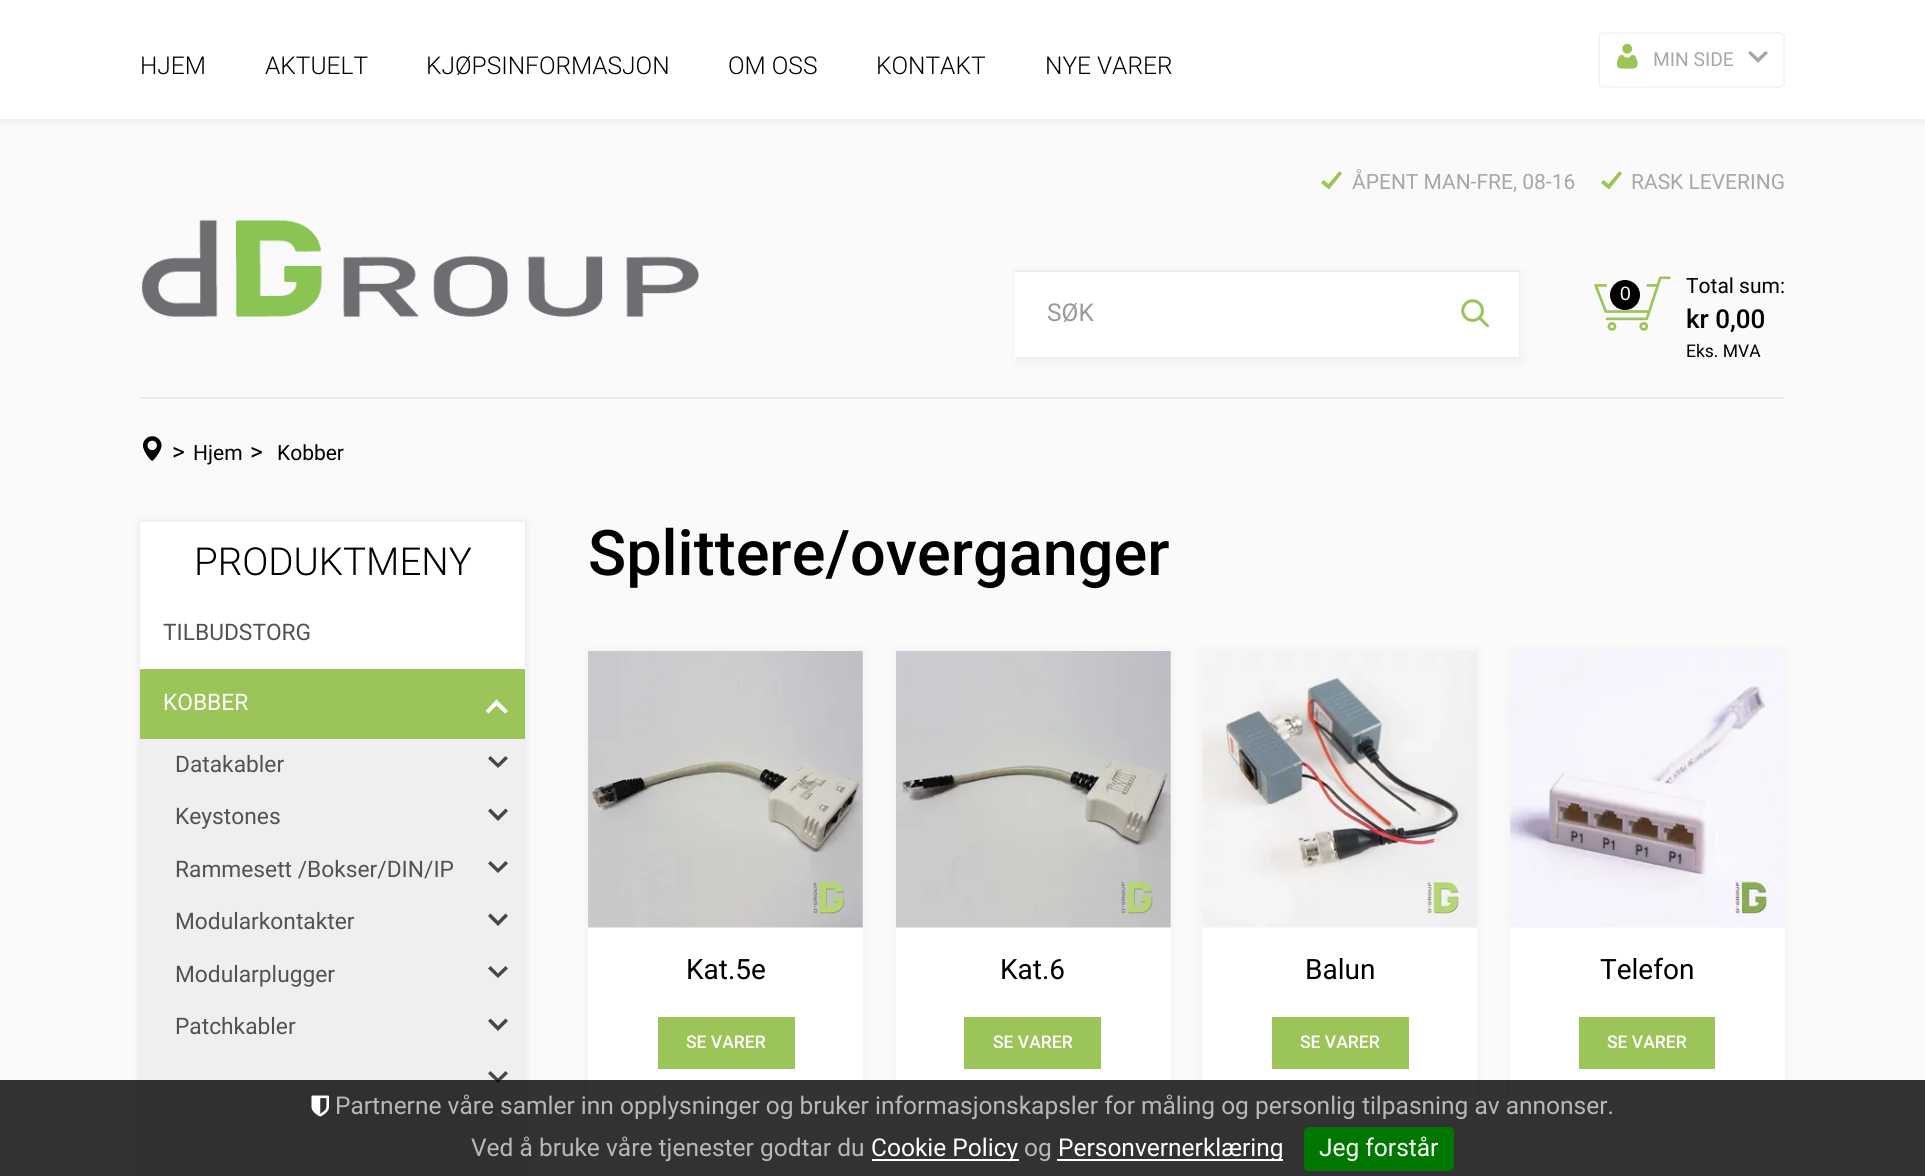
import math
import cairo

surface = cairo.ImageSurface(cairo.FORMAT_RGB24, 1925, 1176)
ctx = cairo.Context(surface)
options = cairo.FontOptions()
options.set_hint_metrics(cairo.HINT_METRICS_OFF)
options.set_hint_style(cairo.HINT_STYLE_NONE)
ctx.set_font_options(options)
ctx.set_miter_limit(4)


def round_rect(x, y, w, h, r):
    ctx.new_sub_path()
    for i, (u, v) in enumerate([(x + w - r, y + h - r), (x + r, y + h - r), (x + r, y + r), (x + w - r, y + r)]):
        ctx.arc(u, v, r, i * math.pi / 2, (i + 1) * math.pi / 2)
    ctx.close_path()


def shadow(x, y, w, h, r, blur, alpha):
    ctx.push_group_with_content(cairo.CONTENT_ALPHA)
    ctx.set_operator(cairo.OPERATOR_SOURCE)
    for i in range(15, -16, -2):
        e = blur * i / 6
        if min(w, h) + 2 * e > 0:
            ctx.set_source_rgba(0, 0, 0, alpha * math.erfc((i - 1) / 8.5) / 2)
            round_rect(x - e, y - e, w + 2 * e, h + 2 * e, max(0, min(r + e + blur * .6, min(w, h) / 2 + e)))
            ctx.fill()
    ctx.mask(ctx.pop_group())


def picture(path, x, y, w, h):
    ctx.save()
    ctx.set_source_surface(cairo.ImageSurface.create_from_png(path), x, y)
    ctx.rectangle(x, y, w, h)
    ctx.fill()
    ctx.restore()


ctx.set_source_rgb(0.98, 0.98, 0.98)
ctx.paint()
ctx.set_source_rgb(0, 0, 0)
shadow(0, 0, 1925, 119, 0, 4.5, 0.1)
ctx.set_source_rgb(1, 1, 1)
ctx.rectangle(0, 0, 1925, 119)
ctx.fill()
ctx.select_font_face("Roboto Light")
ctx.set_font_size(24.5)
ctx.set_source_rgb(0, 0, 0)
ctx.move_to(140, 74)
ctx.show_text("HJEM")
ctx.move_to(265, 74)
ctx.show_text("AKTUELT")
ctx.move_to(426, 74)
ctx.show_text("KJØPSINFORMASJON")
ctx.move_to(728, 74)
ctx.show_text("OM OSS")
ctx.move_to(876, 74)
ctx.show_text("KONTAKT")
ctx.move_to(1045, 74)
ctx.show_text("NYE VARER")
round_rect(1599, 33, 185, 54, 4)
ctx.set_source_rgb(0.957, 0.957, 0.957)
ctx.stroke()
picture("img1.png", 1616, 43, 22, 26)
ctx.select_font_face("Roboto")
ctx.set_font_size(19.25)
ctx.set_source_rgb(0.655, 0.655, 0.655)
ctx.move_to(1653, 66)
ctx.show_text("MIN SIDE")
ctx.set_source_rgb(0.651, 0.651, 0.651)
ctx.new_path()
ctx.move_to(1768, 53)
ctx.line_to(1765.5, 51)
ctx.line_to(1758, 58)
ctx.line_to(1750.5, 51)
ctx.line_to(1748, 53)
ctx.line_to(1758, 63)
ctx.close_path()
ctx.fill()
ctx.set_source_rgb(0.918, 0.918, 0.918)
ctx.rectangle(140, 397, 1645, 2)
ctx.fill()
ctx.set_source_rgb(0.608, 0.773, 0.349)
ctx.new_path()
ctx.move_to(1342, 173.5)
ctx.line_to(1339.5, 171)
ctx.line_to(1328.5, 184)
ctx.line_to(1323.5, 180)
ctx.line_to(1321, 183)
ctx.line_to(1329, 189.5)
ctx.close_path()
ctx.fill()
ctx.set_font_size(21)
ctx.set_source_rgb(0.655, 0.655, 0.655)
ctx.move_to(1352, 189)
ctx.show_text("ÅPENT MAN-FRE, 08-16")
ctx.set_source_rgb(0.608, 0.773, 0.349)
ctx.new_path()
ctx.move_to(1622, 173.5)
ctx.line_to(1619.5, 171)
ctx.line_to(1608.5, 184)
ctx.line_to(1603.5, 180)
ctx.line_to(1601, 183)
ctx.line_to(1609, 189.5)
ctx.close_path()
ctx.fill()
ctx.set_source_rgb(0.655, 0.655, 0.655)
ctx.move_to(1631, 189)
ctx.show_text("RASK LEVERING")
picture("img2.png", 141, 219, 559, 98)
ctx.set_source_rgb(0, 0, 0)
shadow(1017, 273, 504, 88, 0, 4.5, 0.05)
ctx.set_source_rgb(1, 1, 1)
ctx.rectangle(1015, 272, 504, 85)
ctx.fill()
ctx.set_source_rgb(0.925, 0.925, 0.925)
ctx.rectangle(1015, 270, 504, 2)
ctx.fill()
ctx.set_font_size(24.5)
ctx.set_source_rgb(0.6, 0.6, 0.6)
ctx.move_to(1047, 321)
ctx.show_text("SØK")
picture("img3.png", 1461, 299, 28, 29)
picture("img4.png", 1594, 276, 77, 55)
ctx.set_source_rgb(0, 0, 0)
ctx.arc(1625, 295, 15, 0, 2 * math.pi)
ctx.fill()
ctx.select_font_face("Liberation Sans")
ctx.set_font_size(19.25)
ctx.set_source_rgb(1, 1, 1)
ctx.move_to(1620, 300)
ctx.show_text("0")
ctx.select_font_face("Roboto")
ctx.set_font_size(21)
ctx.set_source_rgb(0, 0, 0)
ctx.move_to(1686, 293)
ctx.show_text("Total sum:")
ctx.select_font_face("Roboto Medium")
ctx.set_font_size(26)
ctx.move_to(1686, 328)
ctx.show_text("kr 0,00")
ctx.select_font_face("Roboto")
ctx.set_font_size(17.5)
ctx.move_to(1686, 357)
ctx.show_text("Eks. MVA")
picture("img5.png", 143, 436, 19, 25)
ctx.set_font_size(24.5)
ctx.move_to(172, 460)
ctx.show_text(">")
ctx.set_font_size(21)
ctx.move_to(193, 460)
ctx.show_text("Hjem")
ctx.set_font_size(24.5)
ctx.move_to(250, 460)
ctx.show_text(">")
ctx.set_font_size(21)
ctx.move_to(277, 460)
ctx.show_text("Kobber")
ctx.set_source_rgb(0, 0, 0)
shadow(140, 522, 385, 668, 0, 4.5, 0.1)
ctx.set_source_rgb(1, 1, 1)
ctx.rectangle(140, 522, 385, 147)
ctx.fill()
ctx.select_font_face("Roboto Light")
ctx.set_font_size(38.5)
ctx.set_source_rgb(0, 0, 0)
ctx.move_to(194, 575)
ctx.show_text("PRODUKTMENY")
ctx.select_font_face("Roboto")
ctx.set_font_size(22.75)
ctx.set_source_rgb(0.322, 0.322, 0.322)
ctx.move_to(163, 640)
ctx.show_text("TILBUDSTORG")
ctx.set_source_rgb(0.608, 0.773, 0.349)
ctx.rectangle(140, 669, 385, 70)
ctx.fill()
ctx.set_source_rgb(1, 1, 1)
ctx.move_to(163, 710)
ctx.show_text("KOBBER")
ctx.new_path()
ctx.move_to(485.5, 711)
ctx.line_to(488.5, 713.5)
ctx.line_to(496.5, 705.5)
ctx.line_to(505, 713.5)
ctx.line_to(508, 711)
ctx.line_to(496.5, 699.5)
ctx.close_path()
ctx.fill()
ctx.set_source_rgb(0.937, 0.937, 0.937)
ctx.rectangle(140, 739, 385, 437)
ctx.fill()
ctx.set_source_rgb(0.322, 0.322, 0.322)
ctx.move_to(175, 772)
ctx.show_text("Datakabler")
ctx.set_source_rgb(0.278, 0.271, 0.275)
ctx.new_path()
ctx.move_to(508, 758.5)
ctx.line_to(505.5, 756)
ctx.line_to(498, 763.5)
ctx.line_to(490.5, 756)
ctx.line_to(488, 758.5)
ctx.line_to(498, 768)
ctx.close_path()
ctx.fill()
ctx.set_source_rgb(0.322, 0.322, 0.322)
ctx.move_to(175, 824)
ctx.show_text("Keystones")
ctx.set_source_rgb(0.278, 0.271, 0.275)
ctx.new_path()
ctx.move_to(508, 811)
ctx.line_to(505.5, 808.5)
ctx.line_to(498, 816)
ctx.line_to(490.5, 808.5)
ctx.line_to(488, 811)
ctx.line_to(498, 821)
ctx.close_path()
ctx.fill()
ctx.set_source_rgb(0.322, 0.322, 0.322)
ctx.move_to(175, 877)
ctx.show_text("Rammesett /Bokser/DIN/IP")
ctx.set_source_rgb(0.278, 0.271, 0.275)
ctx.new_path()
ctx.move_to(508, 863.5)
ctx.line_to(505.5, 861)
ctx.line_to(498, 868.5)
ctx.line_to(490.5, 861)
ctx.line_to(488, 863.5)
ctx.line_to(498, 873)
ctx.close_path()
ctx.fill()
ctx.set_source_rgb(0.322, 0.322, 0.322)
ctx.move_to(175, 929)
ctx.show_text("Modularkontakter")
ctx.set_source_rgb(0.278, 0.271, 0.275)
ctx.new_path()
ctx.move_to(508, 916)
ctx.line_to(505.5, 913.5)
ctx.line_to(498, 921)
ctx.line_to(490.5, 913.5)
ctx.line_to(488, 916)
ctx.line_to(498, 926)
ctx.close_path()
ctx.fill()
ctx.set_source_rgb(0.322, 0.322, 0.322)
ctx.move_to(175, 982)
ctx.show_text("Modularplugger")
ctx.set_source_rgb(0.278, 0.271, 0.275)
ctx.new_path()
ctx.move_to(508, 968.5)
ctx.line_to(505.5, 966)
ctx.line_to(498, 973.5)
ctx.line_to(490.5, 966)
ctx.line_to(488, 968.5)
ctx.line_to(498, 978)
ctx.close_path()
ctx.fill()
ctx.set_source_rgb(0.322, 0.322, 0.322)
ctx.move_to(175, 1034)
ctx.show_text("Patchkabler")
ctx.set_source_rgb(0.278, 0.271, 0.275)
ctx.new_path()
ctx.move_to(508, 1021)
ctx.line_to(505.5, 1018.5)
ctx.line_to(498, 1026)
ctx.line_to(490.5, 1018.5)
ctx.line_to(488, 1021)
ctx.line_to(498, 1031)
ctx.close_path()
ctx.fill()
ctx.new_path()
ctx.move_to(508, 1073.5)
ctx.line_to(505.5, 1071)
ctx.line_to(498, 1078.5)
ctx.line_to(490.5, 1071)
ctx.line_to(488, 1073.5)
ctx.line_to(498, 1083)
ctx.close_path()
ctx.fill()
ctx.select_font_face("Roboto Medium")
ctx.set_font_size(63)
ctx.set_source_rgb(0, 0, 0)
ctx.move_to(588, 575)
ctx.show_text("Splittere/overganger")
ctx.set_source_rgb(0, 0, 0)
shadow(588, 651, 275, 453, 0, 4.5, 0.05)
ctx.set_source_rgb(1, 1, 1)
ctx.rectangle(588, 651, 275, 453)
ctx.fill()
picture("img6.png", 588, 651, 275, 277)
ctx.select_font_face("Roboto")
ctx.set_font_size(28)
ctx.set_source_rgb(0, 0, 0)
ctx.move_to(686, 979)
ctx.show_text("Kat.5e")
ctx.set_source_rgb(0.608, 0.773, 0.349)
ctx.rectangle(658, 1017, 137, 52)
ctx.fill()
ctx.select_font_face("Roboto Medium")
ctx.set_font_size(17.5)
ctx.set_source_rgb(1, 1, 1)
ctx.move_to(686, 1048)
ctx.show_text("SE VARER")
ctx.set_source_rgb(0, 0, 0)
shadow(896, 651, 275, 453, 0, 4.5, 0.05)
ctx.set_source_rgb(1, 1, 1)
ctx.rectangle(896, 651, 275, 453)
ctx.fill()
picture("img7.png", 896, 651, 275, 277)
ctx.select_font_face("Roboto")
ctx.set_font_size(28)
ctx.set_source_rgb(0, 0, 0)
ctx.move_to(1000, 979)
ctx.show_text("Kat.6")
ctx.set_source_rgb(0.608, 0.773, 0.349)
ctx.rectangle(964, 1017, 137, 52)
ctx.fill()
ctx.select_font_face("Roboto Medium")
ctx.set_font_size(17.5)
ctx.set_source_rgb(1, 1, 1)
ctx.move_to(993, 1048)
ctx.show_text("SE VARER")
ctx.set_source_rgb(0, 0, 0)
shadow(1202, 651, 275, 453, 0, 4.5, 0.05)
ctx.set_source_rgb(1, 1, 1)
ctx.rectangle(1202, 651, 275, 453)
ctx.fill()
picture("img8.png", 1202, 651, 275, 277)
ctx.select_font_face("Roboto")
ctx.set_font_size(28)
ctx.set_source_rgb(0, 0, 0)
ctx.move_to(1305, 979)
ctx.show_text("Balun")
ctx.set_source_rgb(0.608, 0.773, 0.349)
ctx.rectangle(1272, 1017, 137, 52)
ctx.fill()
ctx.select_font_face("Roboto Medium")
ctx.set_font_size(17.5)
ctx.set_source_rgb(1, 1, 1)
ctx.move_to(1300, 1048)
ctx.show_text("SE VARER")
ctx.set_source_rgb(0, 0, 0)
shadow(1510, 651, 275, 453, 0, 4.5, 0.05)
ctx.set_source_rgb(1, 1, 1)
ctx.rectangle(1510, 651, 275, 453)
ctx.fill()
picture("img9.png", 1510, 651, 275, 277)
ctx.select_font_face("Roboto")
ctx.set_font_size(28)
ctx.set_source_rgb(0, 0, 0)
ctx.move_to(1600, 979)
ctx.show_text("Telefon")
ctx.set_source_rgb(0.608, 0.773, 0.349)
ctx.rectangle(1579, 1017, 136, 52)
ctx.fill()
ctx.select_font_face("Roboto Medium")
ctx.set_font_size(17.5)
ctx.set_source_rgb(1, 1, 1)
ctx.move_to(1607, 1048)
ctx.show_text("SE VARER")
ctx.set_source_rgba(0, 0, 0, 0.8)
ctx.rectangle(0, 1080, 1925, 96)
ctx.fill()
picture("img10.png", 311, 1095, 18, 22)
ctx.select_font_face("Roboto")
ctx.set_font_size(24.5)
ctx.set_source_rgb(0.722, 0.722, 0.722)
ctx.move_to(335, 1114)
ctx.show_text("Partnerne våre samler inn opplysninger og bruker informasjonskapsler for måling og personlig tilpasning av annonser.")
ctx.move_to(471, 1156)
ctx.show_text("Ved å bruke våre tjenester godtar du")
ctx.set_source_rgb(1, 1, 1)
ctx.rectangle(872, 1159, 147, 2)
ctx.fill()
ctx.move_to(871, 1156)
ctx.show_text("Cookie Policy")
ctx.set_source_rgb(0.722, 0.722, 0.722)
ctx.move_to(1024, 1156)
ctx.show_text("og")
ctx.set_source_rgb(1, 1, 1)
ctx.rectangle(1057, 1159, 226, 2)
ctx.fill()
ctx.move_to(1058, 1156)
ctx.show_text("Personvernerklæring")
ctx.set_source_rgb(0, 0.467, 0)
round_rect(1304, 1127, 150, 44, 5)
ctx.fill()
ctx.set_source_rgb(1, 1, 1)
ctx.move_to(1319, 1156)
ctx.show_text("Jeg forstår")
surface.write_to_png("page.png")
